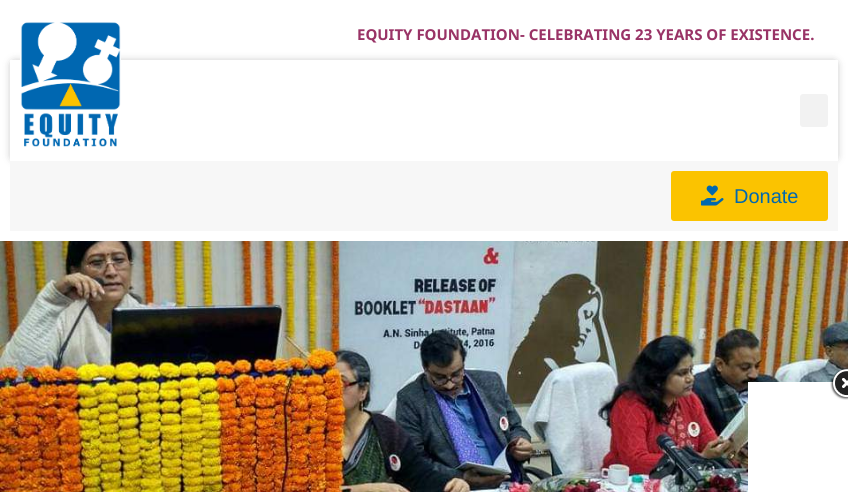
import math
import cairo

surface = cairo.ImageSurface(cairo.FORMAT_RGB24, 848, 492)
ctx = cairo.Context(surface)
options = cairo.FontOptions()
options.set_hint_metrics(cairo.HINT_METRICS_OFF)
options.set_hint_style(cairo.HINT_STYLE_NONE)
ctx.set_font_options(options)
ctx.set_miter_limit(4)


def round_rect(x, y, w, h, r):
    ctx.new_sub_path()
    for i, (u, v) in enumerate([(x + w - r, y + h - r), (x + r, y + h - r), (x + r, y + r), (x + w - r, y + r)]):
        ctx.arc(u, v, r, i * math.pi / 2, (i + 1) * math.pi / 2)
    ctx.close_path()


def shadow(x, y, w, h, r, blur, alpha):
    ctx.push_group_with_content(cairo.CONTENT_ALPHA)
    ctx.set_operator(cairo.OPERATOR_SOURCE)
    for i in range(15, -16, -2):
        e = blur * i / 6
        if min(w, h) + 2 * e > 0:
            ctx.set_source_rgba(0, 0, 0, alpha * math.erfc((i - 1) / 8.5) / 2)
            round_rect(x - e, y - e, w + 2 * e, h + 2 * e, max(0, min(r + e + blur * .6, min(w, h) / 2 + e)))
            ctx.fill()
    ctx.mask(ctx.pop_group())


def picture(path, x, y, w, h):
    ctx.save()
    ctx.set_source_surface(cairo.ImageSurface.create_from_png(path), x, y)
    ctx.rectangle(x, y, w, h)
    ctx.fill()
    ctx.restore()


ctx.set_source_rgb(1, 1, 1)
ctx.paint()
ctx.save()
ctx.set_fill_rule(cairo.FILL_RULE_EVEN_ODD)
ctx.new_path()
ctx.move_to(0, 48)
ctx.line_to(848, 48)
ctx.line_to(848, 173)
ctx.line_to(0, 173)
ctx.close_path()
ctx.move_to(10, 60)
ctx.line_to(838, 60)
ctx.line_to(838, 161)
ctx.line_to(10, 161)
ctx.close_path()
ctx.clip()
ctx.set_source_rgb(0, 0, 0)
shadow(14, 64, 820, 93, 0, 5, 0.5)
ctx.restore()
picture("img1.png", 20, 22, 101, 125)
ctx.set_source_rgb(0.949, 0.949, 0.949)
round_rect(800, 94, 28, 33, 3)
ctx.fill()
ctx.select_font_face("Noto Sans", cairo.FONT_SLANT_NORMAL, cairo.FONT_WEIGHT_BOLD)
ctx.set_font_size(15)
ctx.set_source_rgb(0.6, 0.2, 0.4)
ctx.move_to(357, 40)
ctx.show_text("EQUITY FOUNDATION- CELEBRATING 23 YEARS OF EXISTENCE.")
ctx.set_source_rgb(0.965, 0.965, 0.965)
ctx.rectangle(10, 161, 828, 70)
ctx.fill()
ctx.set_source_rgb(0.984, 0.765, 0)
round_rect(671, 171, 157, 50, 3)
ctx.fill()
picture("img2.png", 701, 185, 23, 21)
ctx.select_font_face("Liberation Sans")
ctx.set_font_size(20)
ctx.set_source_rgb(0, 0.408, 0.69)
ctx.move_to(734, 203)
ctx.show_text("Donate")
picture("img3.png", 0, 241, 848, 251)
ctx.set_source_rgb(1, 1, 1)
ctx.rectangle(748, 382, 100, 110)
ctx.fill()
picture("img4.png", 830, 369, 18, 31)
surface.write_to_png("page.png")
